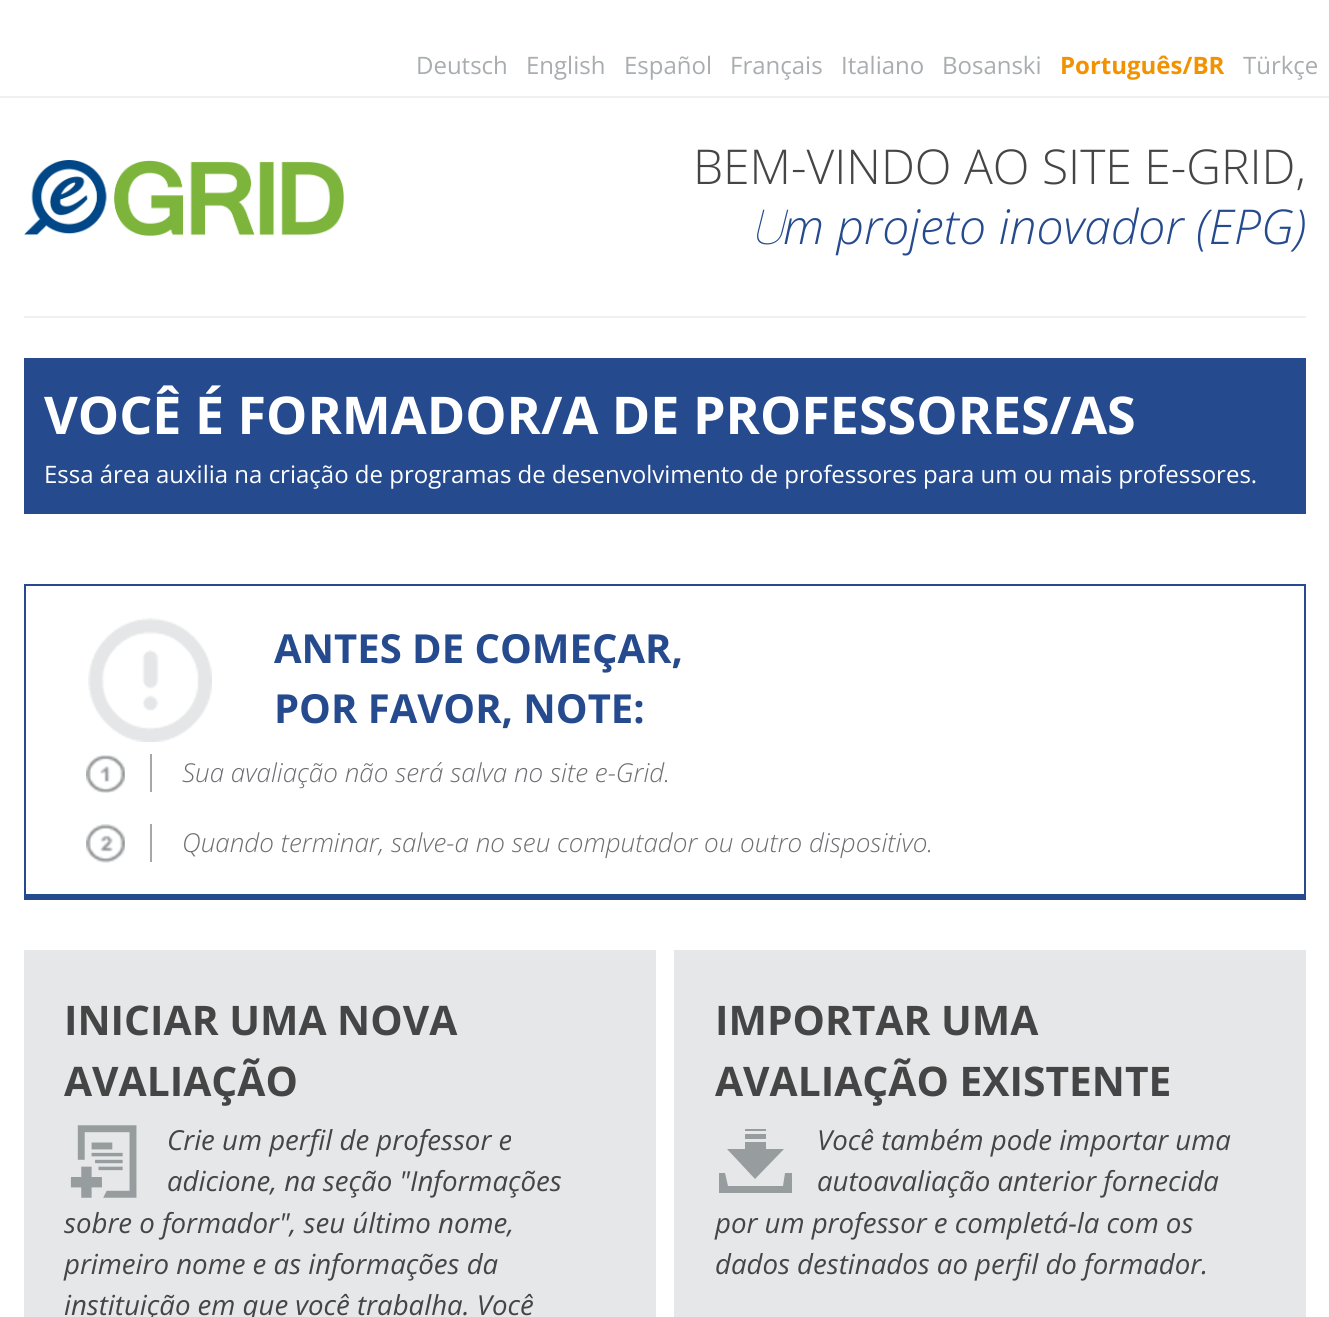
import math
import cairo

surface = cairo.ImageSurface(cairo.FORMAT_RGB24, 1329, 1317)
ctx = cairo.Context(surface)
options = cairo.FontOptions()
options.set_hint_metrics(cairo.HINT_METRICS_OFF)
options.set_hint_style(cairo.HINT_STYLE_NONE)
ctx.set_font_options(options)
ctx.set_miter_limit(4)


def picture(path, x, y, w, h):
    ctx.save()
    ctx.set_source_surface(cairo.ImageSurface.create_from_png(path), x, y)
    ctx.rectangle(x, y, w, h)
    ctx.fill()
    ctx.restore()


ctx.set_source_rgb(1, 1, 1)
ctx.paint()
ctx.select_font_face("Open Sans")
ctx.set_font_size(24)
ctx.set_source_rgb(0.663, 0.678, 0.686)
ctx.move_to(416, 74)
ctx.show_text("Deutsch")
ctx.move_to(526, 74)
ctx.show_text("English")
ctx.move_to(624, 74)
ctx.show_text("Español")
ctx.move_to(730, 74)
ctx.show_text("Français")
ctx.move_to(841, 74)
ctx.show_text("Italiano")
ctx.move_to(942, 74)
ctx.show_text("Bosanski")
ctx.select_font_face("Open Sans", cairo.FONT_SLANT_NORMAL, cairo.FONT_WEIGHT_BOLD)
ctx.set_source_rgb(0.953, 0.573, 0)
ctx.move_to(1060, 74)
ctx.show_text("Português/BR")
ctx.select_font_face("Open Sans")
ctx.set_source_rgb(0.663, 0.678, 0.686)
ctx.move_to(1243, 74)
ctx.show_text("Türkçe")
ctx.set_source_rgb(0.941, 0.941, 0.941)
ctx.rectangle(0, 96, 1329, 2)
ctx.fill()
ctx.rectangle(24, 316, 1282, 2)
ctx.fill()
picture("img1.png", 24, 160, 320, 76)
ctx.select_font_face("Open Sans Light")
ctx.set_font_size(48)
ctx.set_source_rgb(0.271, 0.271, 0.271)
ctx.move_to(693, 184)
ctx.show_text("BEM-VINDO AO SITE E-GRID,")
ctx.select_font_face("Noto Sans Thin", cairo.FONT_SLANT_ITALIC)
ctx.set_source_rgb(0.145, 0.29, 0.557)
ctx.move_to(750, 244)
ctx.show_text("U")
ctx.select_font_face("Open Sans Light", cairo.FONT_SLANT_ITALIC)
ctx.move_to(783, 244)
ctx.show_text("m projeto inovador (EPG)")
ctx.rectangle(24, 358, 1282, 156)
ctx.fill()
ctx.select_font_face("Open Sans", cairo.FONT_SLANT_NORMAL, cairo.FONT_WEIGHT_BOLD)
ctx.set_font_size(52)
ctx.set_source_rgb(1, 1, 1)
ctx.move_to(44, 434)
ctx.show_text("VOCÊ É FORMADOR/A DE PROFESSORES/AS")
ctx.select_font_face("Open Sans")
ctx.set_font_size(24)
ctx.move_to(44, 483)
ctx.show_text("Essa área auxilia na criação de programas de desenvolvimento de professores para um ou mais professores.")
ctx.set_source_rgb(0.145, 0.29, 0.557)
ctx.rectangle(24, 584, 1282, 2)
ctx.fill()
ctx.rectangle(1304, 584, 2, 316)
ctx.fill()
ctx.rectangle(24, 894, 1282, 6)
ctx.fill()
ctx.rectangle(24, 584, 2, 316)
ctx.fill()
picture("img2.png", 88, 618, 124, 124)
ctx.select_font_face("Open Sans", cairo.FONT_SLANT_NORMAL, cairo.FONT_WEIGHT_BOLD)
ctx.set_font_size(40)
ctx.move_to(274, 663)
ctx.show_text("ANTES DE COMEÇAR,")
ctx.move_to(274, 723)
ctx.show_text("POR FAVOR, NOTE:")
picture("img3.png", 86, 755, 39, 38)
ctx.set_source_rgb(0.655, 0.655, 0.655)
ctx.rectangle(150, 754, 2, 38)
ctx.fill()
ctx.select_font_face("Open Sans Light", cairo.FONT_SLANT_ITALIC)
ctx.set_font_size(26)
ctx.set_source_rgb(0.427, 0.431, 0.443)
ctx.move_to(182, 782)
ctx.show_text("Sua avaliação não será salva no site e-Grid.")
picture("img4.png", 86, 824, 39, 39)
ctx.set_source_rgb(0.655, 0.655, 0.655)
ctx.rectangle(150, 824, 2, 38)
ctx.fill()
ctx.set_source_rgb(0.427, 0.431, 0.443)
ctx.move_to(182, 852)
ctx.show_text("Quando terminar, salve-a no seu computador ou outro dispositivo.")
ctx.set_source_rgb(0.902, 0.906, 0.91)
ctx.rectangle(24, 950, 632, 367)
ctx.fill()
ctx.select_font_face("Open Sans", cairo.FONT_SLANT_NORMAL, cairo.FONT_WEIGHT_BOLD)
ctx.set_font_size(40.75)
ctx.set_source_rgb(0.271, 0.271, 0.271)
ctx.move_to(64, 1035)
ctx.show_text("INICIAR UMA NOVA")
ctx.move_to(64, 1096)
ctx.show_text("AVALIAÇÃO")
picture("img5.png", 70, 1125, 67, 73)
ctx.select_font_face("Open Sans", cairo.FONT_SLANT_ITALIC)
ctx.set_font_size(27.6)
ctx.move_to(167, 1150)
ctx.show_text("Crie um perfil de professor e")
ctx.move_to(167, 1191)
ctx.show_text("adicione, na seção \"Informações")
ctx.move_to(64, 1233)
ctx.show_text("sobre o formador\", seu último nome,")
ctx.move_to(64, 1274)
ctx.show_text("primeiro nome e as informações da")
ctx.move_to(64, 1315)
ctx.show_text("instituição em que você trabalha. Você")
ctx.set_source_rgb(0.902, 0.906, 0.91)
ctx.rectangle(674, 950, 632, 367)
ctx.fill()
ctx.select_font_face("Open Sans", cairo.FONT_SLANT_NORMAL, cairo.FONT_WEIGHT_BOLD)
ctx.set_font_size(40.75)
ctx.set_source_rgb(0.271, 0.271, 0.271)
ctx.move_to(715, 1035)
ctx.show_text("IMPORTAR UMA")
ctx.move_to(715, 1096)
ctx.show_text("AVALIAÇÃO EXISTENTE")
ctx.set_source_rgb(0.592, 0.612, 0.62)
ctx.new_path()
ctx.move_to(785, 1173)
ctx.line_to(792, 1173)
ctx.line_to(792, 1193)
ctx.line_to(719, 1193)
ctx.line_to(719, 1173)
ctx.line_to(725, 1173)
ctx.line_to(728, 1186)
ctx.line_to(783, 1186)
ctx.close_path()
ctx.move_to(784, 1149)
ctx.line_to(755, 1179)
ctx.line_to(727, 1149)
ctx.line_to(745, 1149)
ctx.line_to(745, 1142)
ctx.line_to(766, 1142)
ctx.line_to(766, 1149)
ctx.close_path()
ctx.move_to(766, 1129)
ctx.line_to(766, 1131)
ctx.line_to(745, 1131)
ctx.line_to(745, 1129)
ctx.close_path()
ctx.move_to(766, 1134)
ctx.line_to(766, 1139)
ctx.line_to(745, 1139)
ctx.line_to(745, 1134)
ctx.close_path()
ctx.fill()
ctx.select_font_face("Open Sans", cairo.FONT_SLANT_ITALIC)
ctx.set_font_size(27.6)
ctx.set_source_rgb(0.271, 0.271, 0.271)
ctx.move_to(817, 1150)
ctx.show_text("Você também pode importar uma")
ctx.move_to(817, 1191)
ctx.show_text("autoavaliação anterior fornecida")
ctx.move_to(715, 1233)
ctx.show_text("por um professor e completá-la com os")
ctx.move_to(715, 1274)
ctx.show_text("dados destinados ao perfil do formador.")
surface.write_to_png("page.png")
